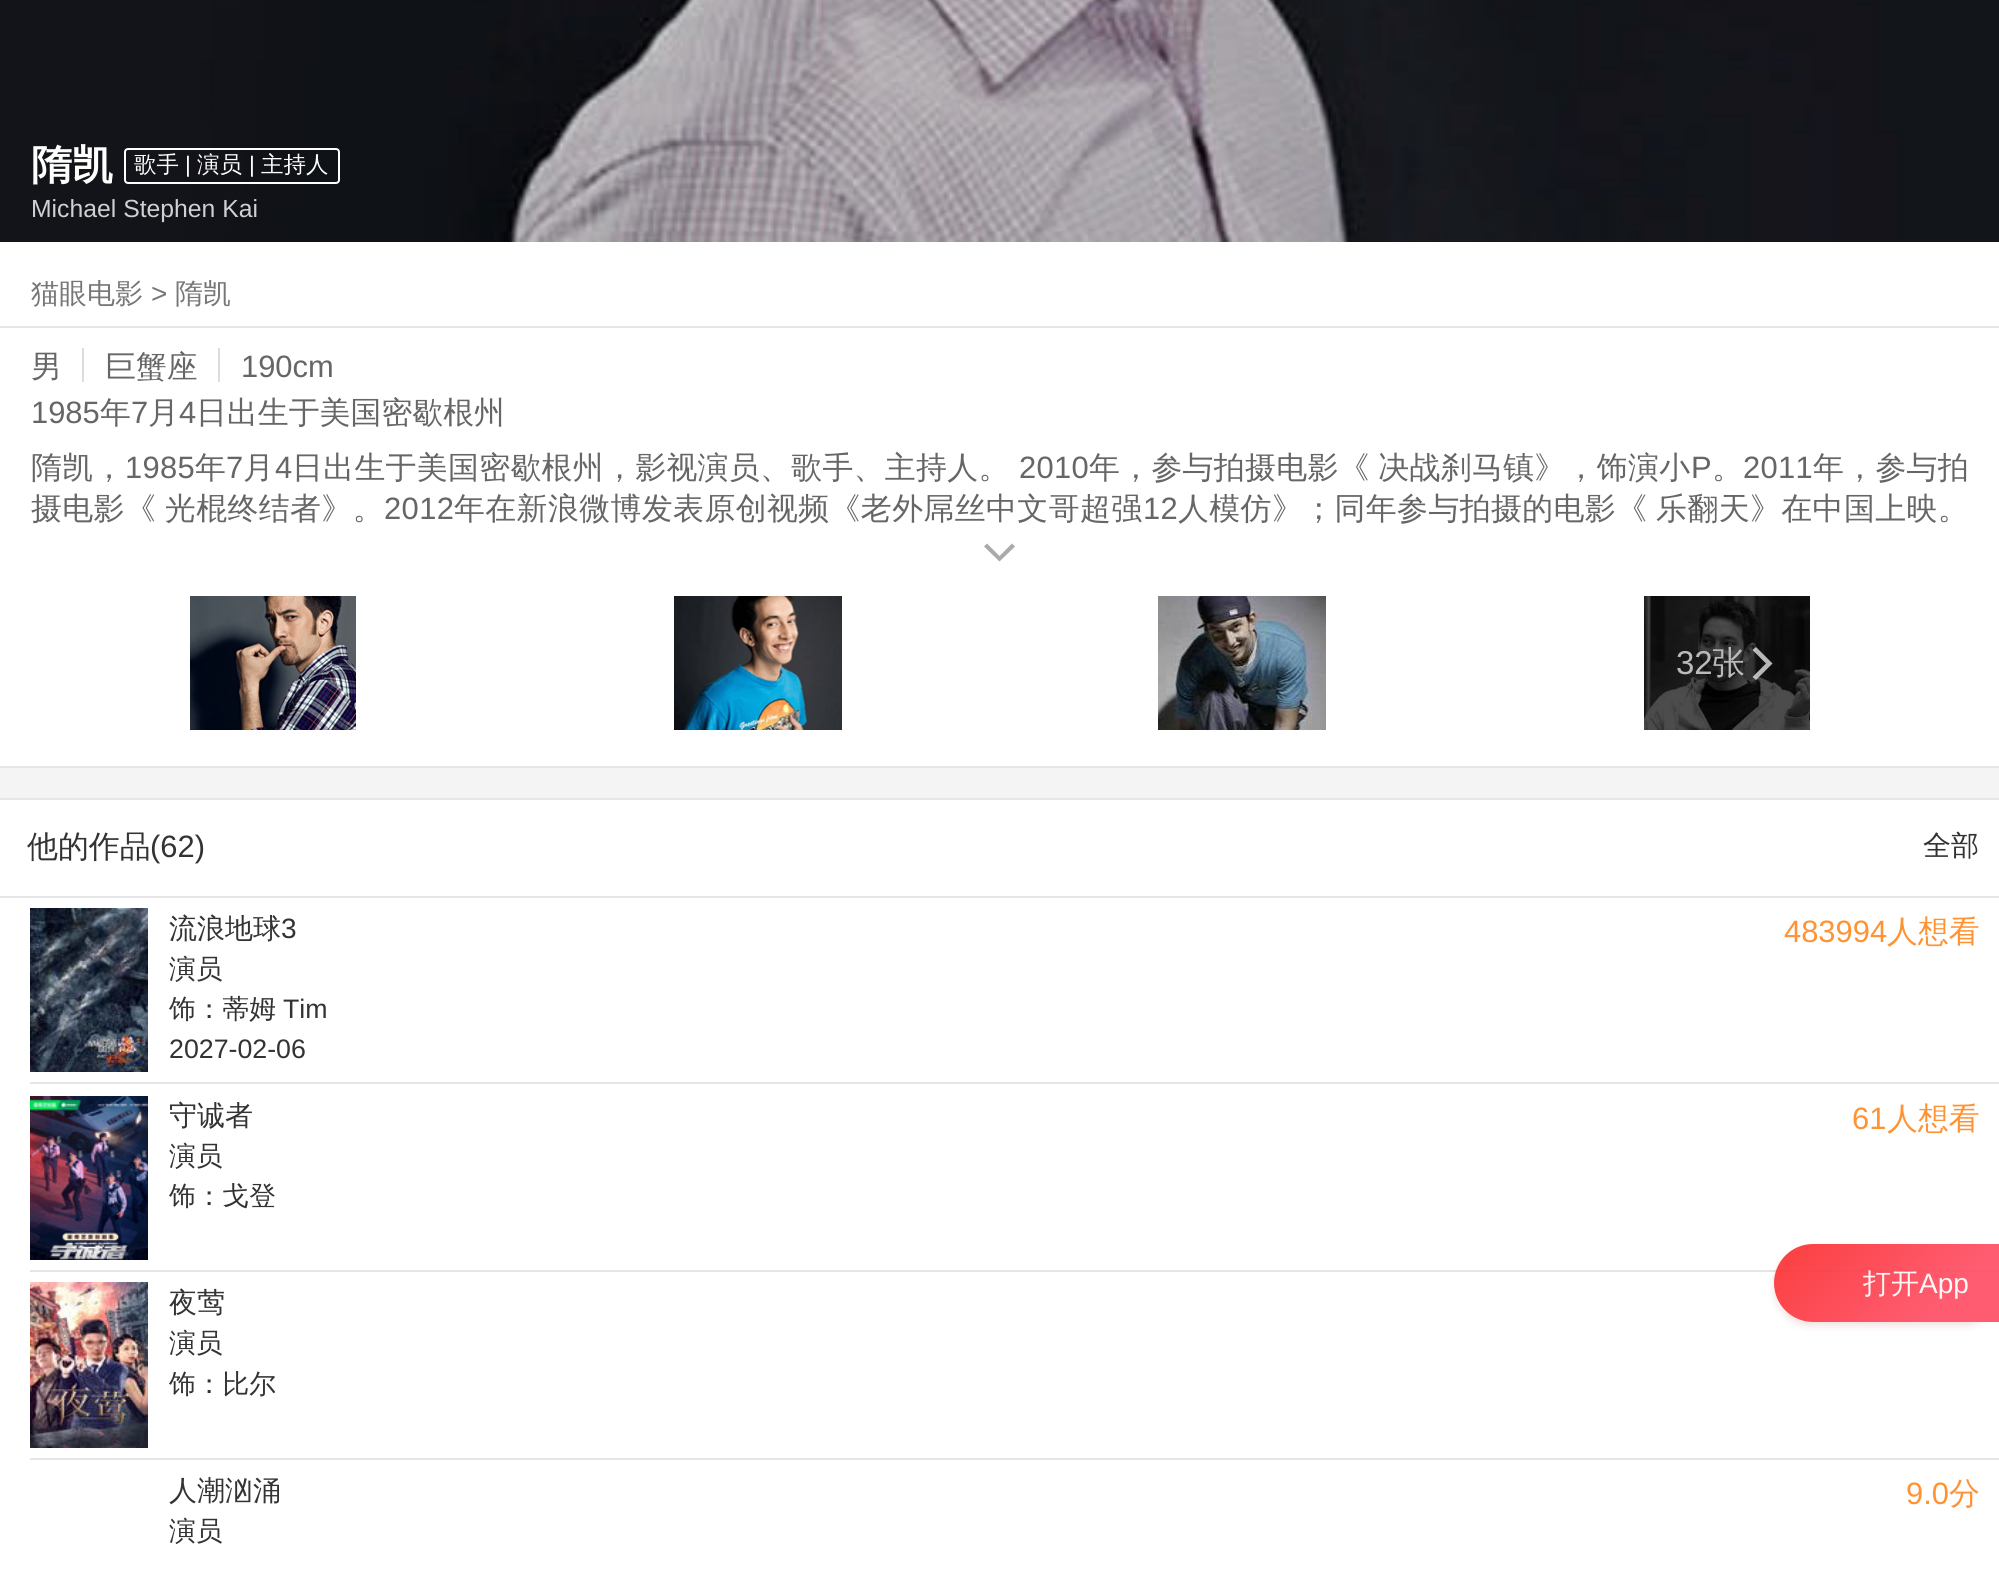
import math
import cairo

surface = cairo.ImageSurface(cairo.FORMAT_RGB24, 1999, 1569)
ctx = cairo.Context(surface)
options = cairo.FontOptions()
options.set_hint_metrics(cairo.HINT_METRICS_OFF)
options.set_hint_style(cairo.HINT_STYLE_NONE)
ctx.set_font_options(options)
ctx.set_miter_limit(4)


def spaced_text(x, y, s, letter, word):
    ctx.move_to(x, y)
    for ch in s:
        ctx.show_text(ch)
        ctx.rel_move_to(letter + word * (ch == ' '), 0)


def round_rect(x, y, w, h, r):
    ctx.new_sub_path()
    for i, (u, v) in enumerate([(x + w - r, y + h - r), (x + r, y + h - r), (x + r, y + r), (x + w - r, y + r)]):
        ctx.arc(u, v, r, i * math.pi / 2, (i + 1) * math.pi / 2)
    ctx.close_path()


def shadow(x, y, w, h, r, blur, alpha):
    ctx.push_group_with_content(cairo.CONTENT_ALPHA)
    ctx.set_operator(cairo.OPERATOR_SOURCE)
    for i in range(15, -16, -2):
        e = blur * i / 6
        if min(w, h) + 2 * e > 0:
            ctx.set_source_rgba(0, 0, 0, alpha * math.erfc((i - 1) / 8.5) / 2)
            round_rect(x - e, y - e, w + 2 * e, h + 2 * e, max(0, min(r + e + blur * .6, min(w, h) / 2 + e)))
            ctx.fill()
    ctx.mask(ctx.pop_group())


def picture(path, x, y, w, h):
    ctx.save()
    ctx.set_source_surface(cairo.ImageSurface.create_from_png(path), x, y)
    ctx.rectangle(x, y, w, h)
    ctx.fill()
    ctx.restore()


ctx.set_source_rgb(0.957, 0.957, 0.957)
ctx.paint()
ctx.set_source_rgb(1, 1, 1)
ctx.rectangle(0, 242, 1999, 524)
ctx.fill()
picture("img1.png", 0, 0, 1999, 242)
ctx.select_font_face("WenQuanYi Zen Hei", cairo.FONT_SLANT_NORMAL, cairo.FONT_WEIGHT_BOLD)
ctx.set_font_size(41)
ctx.move_to(31, 179)
ctx.show_text("隋凯")
round_rect(125, 149, 214, 34, 3)
ctx.stroke()
ctx.select_font_face("WenQuanYi Zen Hei Medium")
ctx.set_font_size(22.5)
ctx.move_to(134, 172)
ctx.show_text("歌手")
ctx.select_font_face("Liberation Sans")
ctx.move_to(185, 172)
ctx.show_text("|")
ctx.select_font_face("WenQuanYi Zen Hei Medium")
ctx.move_to(197, 172)
ctx.show_text("演员")
ctx.select_font_face("Liberation Sans")
ctx.move_to(249, 172)
ctx.show_text("|")
ctx.select_font_face("WenQuanYi Zen Hei Medium")
ctx.move_to(261, 172)
ctx.show_text("主持人")
ctx.select_font_face("Liberation Sans")
ctx.set_font_size(24.75)
ctx.set_source_rgb(0.812, 0.816, 0.82)
ctx.move_to(31, 217)
ctx.show_text("Michael Stephen Kai")
ctx.select_font_face("WenQuanYi Zen Hei Medium")
ctx.set_font_size(28)
ctx.set_source_rgb(0.467, 0.467, 0.467)
ctx.move_to(31, 303)
ctx.show_text("猫眼电影")
ctx.select_font_face("Liberation Sans")
ctx.move_to(151, 303)
ctx.show_text(">")
ctx.select_font_face("WenQuanYi Zen Hei Medium")
ctx.move_to(175, 303)
ctx.show_text("隋凯")
ctx.set_source_rgb(0.898, 0.898, 0.898)
ctx.rectangle(0, 766, 1999, 2)
ctx.fill()
ctx.set_source_rgb(0.902, 0.902, 0.902)
ctx.rectangle(0, 326, 1999, 2)
ctx.fill()
ctx.set_font_size(30.9)
ctx.set_source_rgb(0.4, 0.4, 0.4)
ctx.move_to(31, 377)
ctx.show_text("男")
ctx.move_to(105, 377)
ctx.show_text("巨蟹座")
ctx.set_source_rgb(0.867, 0.867, 0.867)
ctx.rectangle(82, 348, 2, 34)
ctx.fill()
ctx.select_font_face("Liberation Sans")
ctx.set_source_rgb(0.4, 0.4, 0.4)
ctx.move_to(241, 377)
ctx.show_text("190cm")
ctx.set_source_rgb(0.867, 0.867, 0.867)
ctx.rectangle(218, 348, 2, 34)
ctx.fill()
ctx.set_source_rgb(0.4, 0.4, 0.4)
ctx.move_to(31, 423)
ctx.show_text("1985")
ctx.select_font_face("WenQuanYi Zen Hei Medium")
ctx.move_to(100, 423)
ctx.show_text("年")
ctx.select_font_face("Liberation Sans")
ctx.move_to(131, 423)
ctx.show_text("7")
ctx.select_font_face("WenQuanYi Zen Hei Medium")
ctx.move_to(148, 423)
ctx.show_text("月")
ctx.select_font_face("Liberation Sans")
ctx.move_to(179, 423)
ctx.show_text("4")
ctx.select_font_face("WenQuanYi Zen Hei Medium")
ctx.move_to(196, 423)
ctx.show_text("日出生于美国密歇根州")
spaced_text(31, 478, "隋凯，", 0.3, 0)
ctx.select_font_face("Liberation Sans")
spaced_text(125, 478, "1985", 0.3, 0)
ctx.select_font_face("WenQuanYi Zen Hei Medium")
spaced_text(195, 478, "年", 0.3, 0)
ctx.select_font_face("Liberation Sans")
spaced_text(226, 478, "7", 0.3, 0)
ctx.select_font_face("WenQuanYi Zen Hei Medium")
spaced_text(243, 478, "月", 0.3, 0)
ctx.select_font_face("Liberation Sans")
spaced_text(275, 478, "4", 0.3, 0)
ctx.select_font_face("WenQuanYi Zen Hei Medium")
spaced_text(292, 478, "日出生于美国密歇根州，影视演员、歌手、主持人。", 0.3, 0)
ctx.select_font_face("Liberation Sans")
spaced_text(1019, 478, "2010", 0.3, 0)
ctx.select_font_face("WenQuanYi Zen Hei Medium")
spaced_text(1089, 478, "年，参与拍摄电影《 决战刹马镇》，饰演小", 0.3, -1)
ctx.select_font_face("Liberation Sans")
spaced_text(1691, 478, "P", 0.3, 0)
ctx.select_font_face("WenQuanYi Zen Hei Medium")
spaced_text(1712, 478, "。", 0.3, 0)
ctx.select_font_face("Liberation Sans")
spaced_text(1743, 478, "2011", 0.3, 0)
ctx.select_font_face("WenQuanYi Zen Hei Medium")
spaced_text(1813, 478, "年，参与拍", 0.3, 0)
spaced_text(31, 519, "摄电影《 光棍终结者》。", 0.4, -1)
ctx.select_font_face("Liberation Sans")
spaced_text(384, 519, "2012", 0.4, 0)
ctx.select_font_face("WenQuanYi Zen Hei Medium")
spaced_text(454, 519, "年在新浪微博发表原创视频《老外屌丝中文哥超强", 0.4, 0)
ctx.select_font_face("Liberation Sans")
spaced_text(1143, 519, "12", 0.4, 0)
ctx.select_font_face("WenQuanYi Zen Hei Medium")
spaced_text(1178, 519, "人模仿》；同年参与拍摄的电影《 乐翻天》在中国上映。", 0.4, -1)
ctx.set_source_rgb(0.667, 0.667, 0.667)
ctx.new_path()
ctx.move_to(1015, 546.5)
ctx.line_to(1012, 543.5)
ctx.line_to(999.5, 556)
ctx.line_to(987, 543.5)
ctx.line_to(984, 546.5)
ctx.line_to(999.5, 561.5)
ctx.close_path()
ctx.fill()
picture("img2.png", 190, 596, 166, 134)
picture("img3.png", 674, 596, 168, 134)
picture("img4.png", 1158, 596, 168, 134)
picture("img5.png", 1644, 596, 166, 134)
ctx.select_font_face("Liberation Sans")
ctx.set_font_size(33)
ctx.set_source_rgb(0.733, 0.733, 0.733)
ctx.move_to(1676, 674)
ctx.show_text("32")
ctx.select_font_face("WenQuanYi Zen Hei Medium")
ctx.move_to(1712, 674)
ctx.show_text("张")
ctx.set_source_rgba(1, 1, 1, 0.7)
ctx.new_path()
ctx.move_to(1772.5, 663.5)
ctx.line_to(1756, 647)
ctx.line_to(1752.5, 650)
ctx.line_to(1766, 663.5)
ctx.line_to(1752.5, 677)
ctx.line_to(1756, 680)
ctx.close_path()
ctx.fill()
ctx.set_source_rgb(1, 1, 1)
ctx.rectangle(0, 800, 1999, 769)
ctx.fill()
ctx.set_source_rgb(0.902, 0.902, 0.902)
ctx.rectangle(0, 798, 1999, 2)
ctx.fill()
ctx.rectangle(0, 896, 1999, 2)
ctx.fill()
ctx.set_font_size(30.9)
ctx.set_source_rgb(0.2, 0.2, 0.2)
ctx.move_to(27, 857)
ctx.show_text("他的作品")
ctx.select_font_face("Liberation Sans")
ctx.move_to(150, 857)
ctx.show_text("(62)")
ctx.select_font_face("WenQuanYi Zen Hei Medium")
ctx.set_font_size(28)
ctx.move_to(1923, 855)
ctx.show_text("全部")
ctx.set_source_rgb(0.898, 0.898, 0.898)
ctx.rectangle(30, 1082, 1969, 2)
ctx.fill()
picture("img6.png", 30, 908, 118, 164)
ctx.set_source_rgb(0.2, 0.2, 0.2)
ctx.move_to(169, 938)
ctx.show_text("流浪地球")
ctx.select_font_face("Liberation Sans")
ctx.move_to(281, 938)
ctx.show_text("3")
ctx.set_font_size(30.9)
ctx.set_source_rgb(1, 0.576, 0.204)
ctx.move_to(1784, 942)
ctx.show_text("483994")
ctx.select_font_face("WenQuanYi Zen Hei Medium")
ctx.move_to(1887, 942)
ctx.show_text("人想看")
ctx.set_font_size(26.75)
ctx.set_source_rgb(0.2, 0.2, 0.2)
ctx.move_to(169, 978)
ctx.show_text("演员")
ctx.move_to(169, 1018)
ctx.show_text("饰：蒂姆")
ctx.select_font_face("Liberation Sans")
ctx.move_to(283, 1018)
ctx.show_text("Tim")
ctx.move_to(169, 1058)
ctx.show_text("2027-02-06")
ctx.set_source_rgb(0.898, 0.898, 0.898)
ctx.rectangle(30, 1270, 1969, 2)
ctx.fill()
picture("img7.png", 30, 1096, 118, 164)
ctx.select_font_face("WenQuanYi Zen Hei Medium")
ctx.set_font_size(28)
ctx.set_source_rgb(0.2, 0.2, 0.2)
ctx.move_to(169, 1125)
ctx.show_text("守诚者")
ctx.select_font_face("Liberation Sans")
ctx.set_font_size(30.9)
ctx.set_source_rgb(1, 0.576, 0.204)
ctx.move_to(1852, 1129)
ctx.show_text("61")
ctx.select_font_face("WenQuanYi Zen Hei Medium")
ctx.move_to(1887, 1129)
ctx.show_text("人想看")
ctx.set_font_size(26.75)
ctx.set_source_rgb(0.2, 0.2, 0.2)
ctx.move_to(169, 1165)
ctx.show_text("演员")
ctx.move_to(169, 1205)
ctx.show_text("饰：戈登")
ctx.set_source_rgb(0.898, 0.898, 0.898)
ctx.rectangle(30, 1458, 1969, 2)
ctx.fill()
picture("img8.png", 30, 1282, 118, 166)
ctx.set_font_size(28)
ctx.set_source_rgb(0.2, 0.2, 0.2)
ctx.move_to(169, 1312)
ctx.show_text("夜莺")
ctx.set_font_size(26.75)
ctx.move_to(169, 1352)
ctx.show_text("演员")
ctx.move_to(169, 1393)
ctx.show_text("饰：比尔")
ctx.set_font_size(28)
ctx.move_to(169, 1500)
ctx.show_text("人潮汹涌")
ctx.select_font_face("Liberation Sans")
ctx.set_font_size(30.9)
ctx.set_source_rgb(1, 0.576, 0.204)
ctx.move_to(1906, 1504)
ctx.show_text("9.0")
ctx.select_font_face("WenQuanYi Zen Hei Medium")
ctx.move_to(1949, 1504)
ctx.show_text("分")
ctx.set_font_size(26.75)
ctx.set_source_rgb(0.2, 0.2, 0.2)
ctx.move_to(169, 1540)
ctx.show_text("演员")
ctx.save()
ctx.set_fill_rule(cairo.FILL_RULE_EVEN_ODD)
ctx.new_path()
ctx.move_to(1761, 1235)
ctx.line_to(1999, 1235)
ctx.line_to(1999, 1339)
ctx.line_to(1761, 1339)
ctx.close_path()
ctx.move_to(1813, 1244)
ctx.line_to(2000, 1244)
ctx.line_to(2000, 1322)
ctx.line_to(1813, 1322)
ctx.curve_to(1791.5, 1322, 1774, 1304.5, 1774, 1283)
ctx.curve_to(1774, 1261.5, 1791.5, 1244, 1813, 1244)
ctx.close_path()
ctx.clip()
ctx.set_source_rgb(0.627, 0.173, 0.161)
shadow(1774, 1248, 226, 78, 39, 4, 0.14)
ctx.restore()
gradient = cairo.LinearGradient(1809, 1208, 1965, 1358)
gradient.add_color_stop_rgba(0, 0.984, 0.2, 0.2, 0.94)
gradient.add_color_stop_rgba(0.75, 1, 0.322, 0.412, 0.94)
ctx.set_source(gradient)
ctx.new_path()
ctx.move_to(1813, 1244)
ctx.line_to(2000, 1244)
ctx.line_to(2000, 1322)
ctx.line_to(1813, 1322)
ctx.curve_to(1791.5, 1322, 1774, 1304.5, 1774, 1283)
ctx.curve_to(1774, 1261.5, 1791.5, 1244, 1813, 1244)
ctx.close_path()
ctx.fill()
ctx.set_font_size(28)
ctx.set_source_rgb(1, 0.961, 0.965)
ctx.move_to(1863, 1293)
ctx.show_text("打开")
ctx.select_font_face("Liberation Sans")
ctx.move_to(1919, 1293)
ctx.show_text("App")
surface.write_to_png("page.png")
